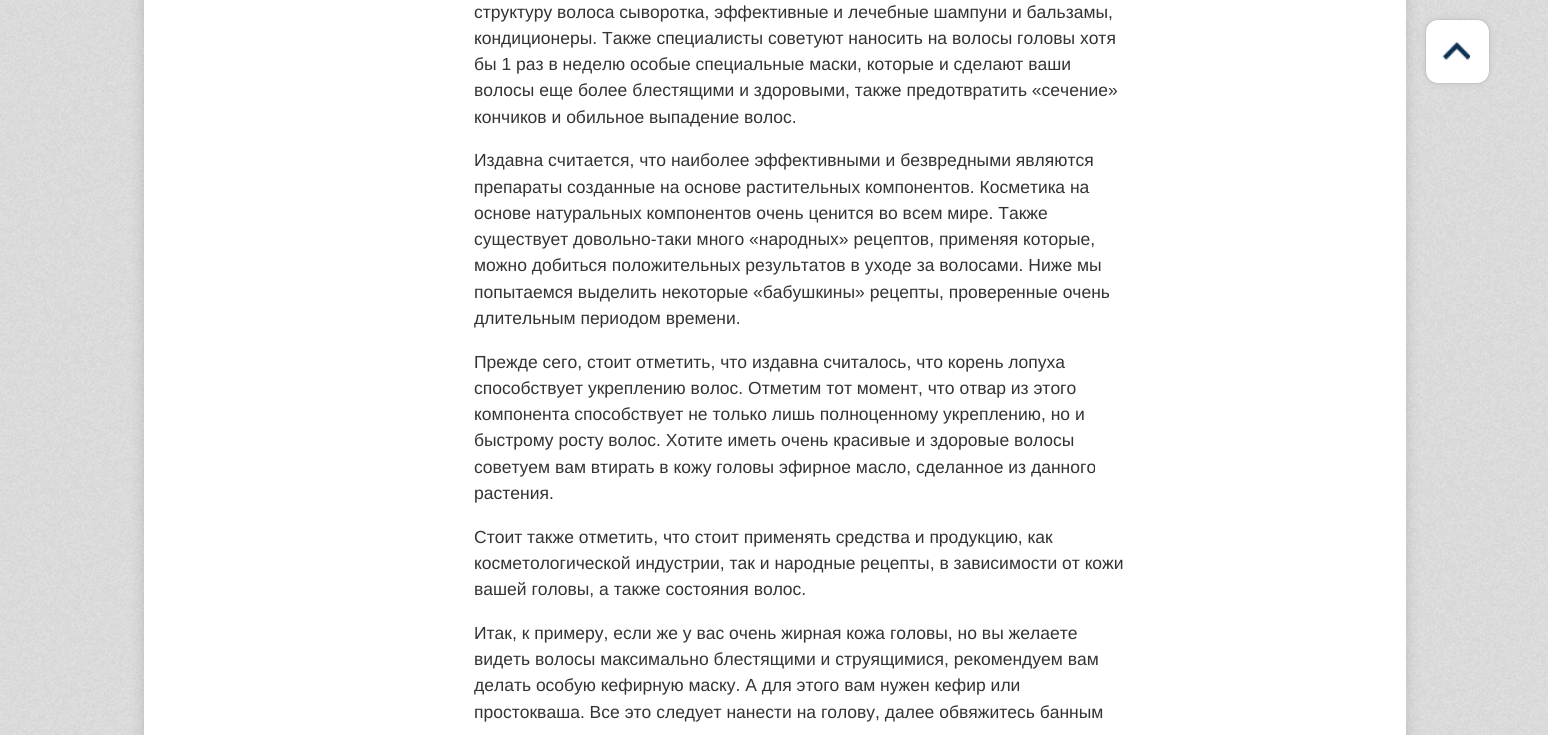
import math
import cairo

surface = cairo.ImageSurface(cairo.FORMAT_RGB24, 1548, 735)
ctx = cairo.Context(surface)
options = cairo.FontOptions()
options.set_hint_metrics(cairo.HINT_METRICS_OFF)
options.set_hint_style(cairo.HINT_STYLE_NONE)
ctx.set_font_options(options)
ctx.set_miter_limit(4)


def round_rect(x, y, w, h, r):
    ctx.new_sub_path()
    for i, (u, v) in enumerate([(x + w - r, y + h - r), (x + r, y + h - r), (x + r, y + r), (x + w - r, y + r)]):
        ctx.arc(u, v, r, i * math.pi / 2, (i + 1) * math.pi / 2)
    ctx.close_path()


def shadow(x, y, w, h, r, blur, alpha):
    ctx.push_group_with_content(cairo.CONTENT_ALPHA)
    ctx.set_operator(cairo.OPERATOR_SOURCE)
    for i in range(15, -16, -2):
        e = blur * i / 6
        if min(w, h) + 2 * e > 0:
            ctx.set_source_rgba(0, 0, 0, alpha * math.erfc((i - 1) / 8.5) / 2)
            round_rect(x - e, y - e, w + 2 * e, h + 2 * e, max(0, min(r + e + blur * .6, min(w, h) / 2 + e)))
            ctx.fill()
    ctx.mask(ctx.pop_group())


def picture(path, x, y, w, h):
    ctx.save()
    ctx.set_source_surface(cairo.ImageSurface.create_from_png(path), x, y)
    ctx.rectangle(x, y, w, h)
    ctx.fill()
    ctx.restore()


ctx.set_source_rgb(1, 1, 1)
ctx.paint()
picture("img1.png", 0, 0, 1548, 735)
ctx.set_source_rgb(0, 0, 0)
shadow(144, -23, 1262, 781, 0, 7.5, 0.15)
ctx.set_source_rgb(1, 1, 1)
ctx.rectangle(144, 0, 1262, 735)
ctx.fill()
ctx.select_font_face("Liberation Sans")
ctx.set_font_size(17.5)
ctx.set_source_rgb(0.2, 0.2, 0.2)
ctx.move_to(474, 18)
ctx.show_text("структуру волоса сыворотка, эффективные и лечебные шампуни и бальзамы,")
ctx.move_to(474, 44)
ctx.show_text("кондиционеры. Также специалисты советуют наносить на волосы головы хотя")
ctx.move_to(474, 70)
ctx.show_text("бы 1 раз в неделю особые специальные маски, которые и сделают ваши")
ctx.move_to(474, 96)
ctx.show_text("волосы еще более блестящими и здоровыми, также предотвратить «сечение»")
ctx.move_to(474, 123)
ctx.show_text("кончиков и обильное выпадение волос.")
ctx.move_to(474, 166)
ctx.show_text("Издавна считается, что наиболее эффективными и безвредными являются")
ctx.move_to(474, 193)
ctx.show_text("препараты созданные на основе растительных компонентов. Косметика на")
ctx.move_to(474, 219)
ctx.show_text("основе натуральных компонентов очень ценится во всем мире. Также")
ctx.move_to(474, 245)
ctx.show_text("существует довольно-таки много «народных» рецептов, применяя которые,")
ctx.move_to(474, 271)
ctx.show_text("можно добиться положительных результатов в уходе за волосами. Ниже мы")
ctx.move_to(474, 298)
ctx.show_text("попытаемся выделить некоторые «бабушкины» рецепты, проверенные очень")
ctx.move_to(474, 324)
ctx.show_text("длительным периодом времени.")
ctx.move_to(474, 368)
ctx.show_text("Прежде сего, стоит отметить, что издавна считалось, что корень лопуха")
ctx.move_to(474, 394)
ctx.show_text("способствует укреплению волос. Отметим тот момент, что отвар из этого")
ctx.move_to(474, 420)
ctx.show_text("компонента способствует не только лишь полноценному укреплению, но и")
ctx.move_to(474, 446)
ctx.show_text("быстрому росту волос. Хотите иметь очень красивые и здоровые волосы")
ctx.move_to(474, 473)
ctx.show_text("советуем вам втирать в кожу головы эфирное масло, сделанное из данного")
ctx.move_to(474, 499)
ctx.show_text("растения.")
ctx.move_to(474, 543)
ctx.show_text("Стоит также отметить, что стоит применять средства и продукцию, как")
ctx.move_to(474, 569)
ctx.show_text("косметологической индустрии, так и народные рецепты, в зависимости от кожи")
ctx.move_to(474, 595)
ctx.show_text("вашей головы, а также состояния волос.")
ctx.move_to(474, 639)
ctx.show_text("Итак, к примеру, если же у вас очень жирная кожа головы, но вы желаете")
ctx.move_to(474, 665)
ctx.show_text("видеть волосы максимально блестящими и струящимися, рекомендуем вам")
ctx.move_to(474, 691)
ctx.show_text("делать особую кефирную маску. А для этого вам нужен кефир или")
ctx.move_to(474, 718)
ctx.show_text("простокваша. Все это следует нанести на голову, далее обвяжитесь банным")
ctx.set_source_rgb(0.776, 0.776, 0.776)
shadow(1425, 19, 65, 65, 13, 3, 1)
ctx.set_source_rgb(1, 1, 1)
round_rect(1425.5, 19.5, 64, 64, 12.5)
ctx.fill_preserve()
ctx.set_source_rgb(0.776, 0.776, 0.776)
ctx.set_line_width(1)
ctx.stroke()
picture("img2.png", 1442, 42, 28, 18)
surface.write_to_png("page.png")
